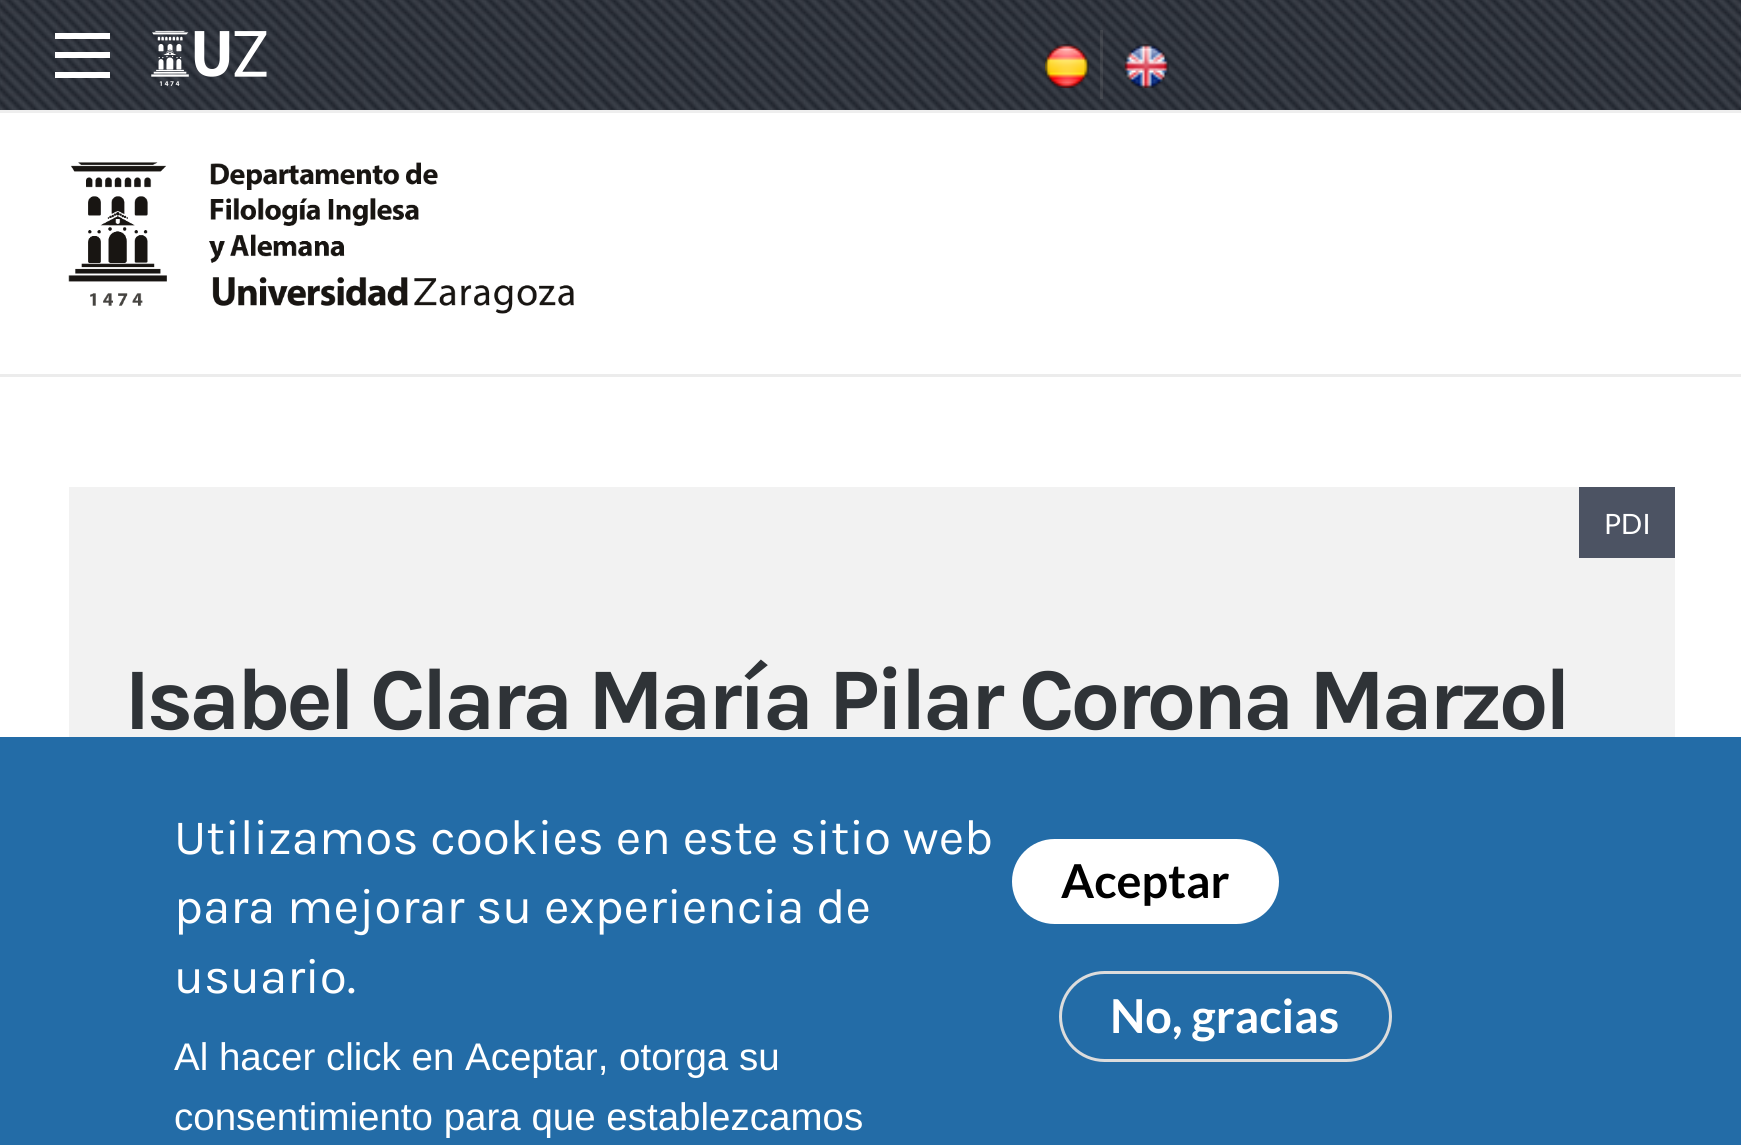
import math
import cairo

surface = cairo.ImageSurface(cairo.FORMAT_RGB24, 1741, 1145)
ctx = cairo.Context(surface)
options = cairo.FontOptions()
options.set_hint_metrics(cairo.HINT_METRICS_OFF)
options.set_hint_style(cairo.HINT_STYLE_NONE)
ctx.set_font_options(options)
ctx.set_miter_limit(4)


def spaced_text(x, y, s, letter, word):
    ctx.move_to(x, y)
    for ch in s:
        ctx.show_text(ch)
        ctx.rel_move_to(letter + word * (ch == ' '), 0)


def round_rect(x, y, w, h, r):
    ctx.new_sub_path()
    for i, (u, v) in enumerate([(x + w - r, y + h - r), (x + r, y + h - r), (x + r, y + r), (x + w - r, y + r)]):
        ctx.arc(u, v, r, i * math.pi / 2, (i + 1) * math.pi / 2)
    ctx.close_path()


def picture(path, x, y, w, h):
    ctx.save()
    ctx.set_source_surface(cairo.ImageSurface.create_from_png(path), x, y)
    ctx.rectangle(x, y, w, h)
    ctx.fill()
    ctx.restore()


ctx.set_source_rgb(1, 1, 1)
ctx.paint()
ctx.set_source_rgb(0.925, 0.925, 0.925)
ctx.rectangle(0, 374, 1741, 3)
ctx.fill()
ctx.set_source_rgb(0.141, 0.161, 0.2)
ctx.rectangle(0, 0, 1741, 110)
ctx.fill()
picture("img1.png", 0, 0, 1741, 110)
ctx.set_source_rgb(0.933, 0.933, 0.933)
ctx.rectangle(0, 110, 1741, 3)
ctx.fill()
ctx.set_source_rgb(1, 1, 1)
ctx.rectangle(55, 52, 55, 6)
ctx.fill()
ctx.rectangle(55, 33, 55, 6)
ctx.fill()
ctx.rectangle(55, 72, 55, 6)
ctx.fill()
picture("img2.png", 151, 30, 116, 56)
ctx.set_source_rgba(0.51, 0.51, 0.51, 0.21)
ctx.rectangle(1100, 30, 3, 69)
ctx.fill()
picture("img3.png", 1045, 44, 44, 44)
picture("img4.png", 1124, 44, 45, 44)
picture("img5.png", 68, 162, 506, 152)
ctx.set_source_rgb(0.949, 0.949, 0.949)
ctx.rectangle(69, 487, 1606, 250)
ctx.fill()
ctx.set_source_rgb(0.298, 0.325, 0.388)
ctx.rectangle(1579, 487, 96, 71)
ctx.fill()
ctx.select_font_face("Lato")
ctx.set_font_size(28)
ctx.set_source_rgb(1, 1, 1)
ctx.move_to(1604, 534)
ctx.show_text("PDI")
ctx.select_font_face("Karla", cairo.FONT_SLANT_NORMAL, cairo.FONT_WEIGHT_BOLD)
ctx.set_font_size(88)
ctx.set_source_rgb(0.184, 0.2, 0.216)
spaced_text(124, 729, "Isabel Clara María Pilar Corona Marzol", -4.1, 0)
ctx.set_source_rgb(0.137, 0.424, 0.655)
ctx.rectangle(0, 737, 1741, 408)
ctx.fill()
ctx.select_font_face("Karla")
ctx.set_font_size(49.5)
ctx.set_source_rgb(1, 1, 1)
ctx.move_to(174, 854)
ctx.show_text("Utilizamos cookies en este sitio web")
ctx.move_to(174, 923)
ctx.show_text("para mejorar su experiencia de")
ctx.move_to(174, 993)
ctx.show_text("usuario.")
ctx.select_font_face("Liberation Sans")
ctx.set_font_size(38.5)
ctx.move_to(174, 1070)
ctx.show_text("Al hacer click en Aceptar, otorga su")
ctx.move_to(174, 1130)
ctx.show_text("consentimiento para que establezcamos")
round_rect(1012, 839, 267, 85, 42.5)
ctx.fill()
ctx.select_font_face("Lato", cairo.FONT_SLANT_NORMAL, cairo.FONT_WEIGHT_BOLD)
ctx.set_font_size(46.75)
ctx.set_source_rgb(0, 0, 0)
ctx.move_to(1061, 898)
ctx.show_text("Aceptar")
round_rect(1060.5, 972.5, 330, 88, 44)
ctx.set_source_rgb(0.863, 0.863, 0.863)
ctx.set_line_width(3)
ctx.stroke()
ctx.set_source_rgb(1, 1, 1)
ctx.move_to(1110, 1033)
ctx.show_text("No, gracias")
surface.write_to_png("page.png")
